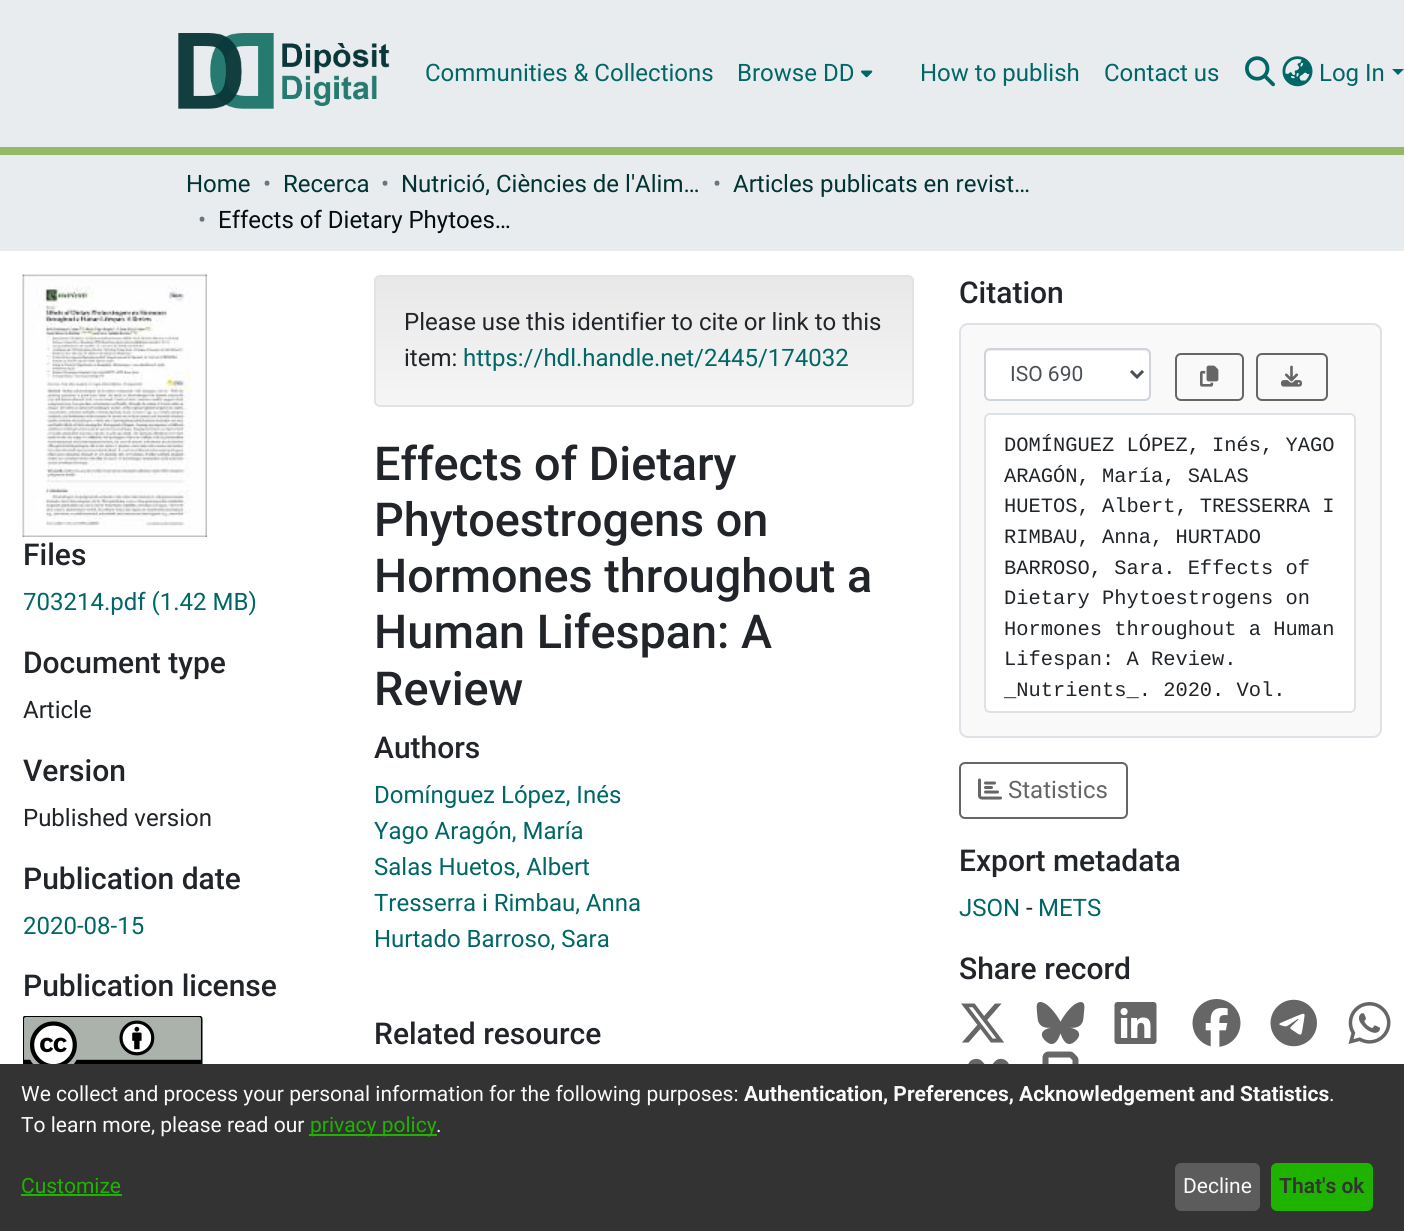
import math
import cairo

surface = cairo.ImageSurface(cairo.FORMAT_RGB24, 1404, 1231)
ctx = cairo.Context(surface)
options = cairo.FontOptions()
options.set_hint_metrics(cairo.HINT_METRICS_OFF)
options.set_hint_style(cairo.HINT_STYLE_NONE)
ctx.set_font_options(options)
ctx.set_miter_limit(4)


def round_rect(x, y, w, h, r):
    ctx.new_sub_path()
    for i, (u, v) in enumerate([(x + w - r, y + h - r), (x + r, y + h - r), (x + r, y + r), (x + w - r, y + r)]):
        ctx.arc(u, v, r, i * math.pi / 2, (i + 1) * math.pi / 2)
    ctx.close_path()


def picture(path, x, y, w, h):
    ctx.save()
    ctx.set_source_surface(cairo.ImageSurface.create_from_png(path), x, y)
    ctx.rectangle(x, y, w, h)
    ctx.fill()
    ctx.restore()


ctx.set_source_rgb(1, 1, 1)
ctx.paint()
ctx.set_source_rgb(0.58, 0.729, 0.396)
ctx.rectangle(0, 147, 1404, 8)
ctx.fill()
ctx.set_source_rgb(0.914, 0.925, 0.937)
ctx.rectangle(0, 0, 1404, 147)
ctx.fill()
picture("img1.png", 178, 33, 212, 76)
ctx.select_font_face("Roboto")
ctx.set_font_size(24)
ctx.set_source_rgb(0, 0.4, 0.4)
ctx.move_to(425, 81)
ctx.show_text("Communities & Collections")
ctx.move_to(737, 81)
ctx.show_text("Browse DD")
picture("img2.png", 861, 70, 12, 8)
ctx.move_to(920, 81)
ctx.show_text("How to publish")
ctx.move_to(1104, 81)
ctx.show_text("Contact us")
picture("img3.png", 1245, 56, 30, 31)
picture("img4.png", 1282, 56, 31, 31)
ctx.move_to(1319, 81)
ctx.show_text("Log In")
ctx.new_path()
ctx.move_to(1392, 69)
ctx.line_to(1404, 69)
ctx.line_to(1398, 75)
ctx.close_path()
ctx.fill()
ctx.set_source_rgb(0.914, 0.925, 0.937)
ctx.rectangle(0, 155, 1404, 96)
ctx.fill()
ctx.set_source_rgb(0, 0.2, 0.2)
ctx.move_to(186, 192)
ctx.show_text("Home")
ctx.set_source_rgb(0.424, 0.459, 0.49)
ctx.move_to(263, 192)
ctx.show_text("•")
ctx.set_source_rgb(0, 0.2, 0.2)
ctx.move_to(283, 192)
ctx.show_text("Recerca")
ctx.set_source_rgb(0.424, 0.459, 0.49)
ctx.move_to(381, 192)
ctx.show_text("•")
ctx.set_source_rgb(0, 0.2, 0.2)
ctx.move_to(401, 192)
ctx.show_text("Nutrició, Ciències de l'Alim…")
ctx.set_source_rgb(0.424, 0.459, 0.49)
ctx.move_to(713, 192)
ctx.show_text("•")
ctx.set_source_rgb(0, 0.2, 0.2)
ctx.move_to(733, 192)
ctx.show_text("Articles publicats en revist…")
ctx.set_source_rgb(0.424, 0.459, 0.49)
ctx.move_to(198, 228)
ctx.show_text("•")
ctx.set_source_rgb(0.016, 0.051, 0.067)
ctx.move_to(218, 228)
ctx.show_text("Effects of Dietary Phytoes…")
picture("img5.png", 22, 274, 185, 263)
ctx.select_font_face("Roboto Medium")
ctx.set_font_size(30)
ctx.set_source_rgb(0.129, 0.145, 0.161)
ctx.move_to(23, 565)
ctx.show_text("Files")
ctx.select_font_face("Roboto")
ctx.set_font_size(24)
ctx.set_source_rgb(0, 0.4, 0.4)
ctx.move_to(23, 610)
ctx.show_text("703214.pdf (1.42 MB)")
ctx.select_font_face("Roboto Medium")
ctx.set_font_size(30)
ctx.set_source_rgb(0.129, 0.145, 0.161)
ctx.move_to(23, 673)
ctx.show_text("Document type")
ctx.select_font_face("Roboto")
ctx.set_font_size(24)
ctx.move_to(23, 718)
ctx.show_text("Article")
ctx.select_font_face("Roboto Medium")
ctx.set_font_size(30)
ctx.move_to(23, 781)
ctx.show_text("Version")
ctx.select_font_face("Roboto")
ctx.set_font_size(24)
ctx.move_to(23, 826)
ctx.show_text("Published version")
ctx.select_font_face("Roboto Medium")
ctx.set_font_size(30)
ctx.move_to(23, 889)
ctx.show_text("Publication date")
ctx.select_font_face("Roboto")
ctx.set_font_size(24)
ctx.set_source_rgb(0, 0.4, 0.4)
ctx.move_to(23, 934)
ctx.show_text("2020-08-15")
ctx.select_font_face("Roboto Medium")
ctx.set_font_size(30)
ctx.set_source_rgb(0.129, 0.145, 0.161)
ctx.move_to(23, 996)
ctx.show_text("Publication license")
picture("img6.png", 23, 1016, 180, 48)
ctx.save()
round_rect(374, 275, 540, 132, 6)
ctx.clip()
gradient = cairo.LinearGradient(644, 276, 644, 405)
gradient.add_color_stop_rgba(0, 0.91, 0.91, 0.91, 1)
gradient.add_color_stop_rgba(1, 0.961, 0.961, 0.961, 1)
ctx.set_source(gradient)
ctx.rectangle(374, 276, 540, 129)
ctx.fill()
ctx.restore()
round_rect(375, 276, 538, 130, 5)
ctx.set_source_rgb(0.89, 0.89, 0.89)
ctx.stroke()
ctx.select_font_face("Roboto")
ctx.set_font_size(24)
ctx.set_source_rgb(0.129, 0.145, 0.161)
ctx.move_to(404, 330)
ctx.show_text("Please use this identifier to cite or link to this")
ctx.move_to(404, 366)
ctx.show_text("item:")
ctx.set_source_rgb(0, 0.4, 0.4)
ctx.move_to(463, 366)
ctx.show_text("https://hdl.handle.net/2445/174032")
ctx.select_font_face("Roboto Medium")
ctx.set_font_size(46.75)
ctx.set_source_rgb(0.129, 0.145, 0.161)
ctx.move_to(374, 480)
ctx.show_text("Effects of Dietary")
ctx.move_to(374, 536)
ctx.show_text("Phytoestrogens on")
ctx.move_to(374, 592)
ctx.show_text("Hormones throughout a")
ctx.move_to(374, 648)
ctx.show_text("Human Lifespan: A")
ctx.move_to(374, 705)
ctx.show_text("Review")
ctx.set_font_size(30)
ctx.move_to(374, 758)
ctx.show_text("Authors")
ctx.select_font_face("Roboto")
ctx.set_font_size(24)
ctx.set_source_rgb(0, 0.4, 0.4)
ctx.move_to(374, 803)
ctx.show_text("Domínguez López, Inés")
ctx.move_to(374, 839)
ctx.show_text("Yago Aragón, María")
ctx.move_to(374, 875)
ctx.show_text("Salas Huetos, Albert")
ctx.move_to(374, 911)
ctx.show_text("Tresserra i Rimbau, Anna")
ctx.move_to(374, 947)
ctx.show_text("Hurtado Barroso, Sara")
ctx.select_font_face("Roboto Medium")
ctx.set_font_size(30)
ctx.set_source_rgb(0.129, 0.145, 0.161)
ctx.move_to(374, 1044)
ctx.show_text("Related resource")
ctx.move_to(959, 303)
ctx.show_text("Citation")
ctx.set_source_rgb(0.973, 0.976, 0.98)
round_rect(960, 324, 421, 413, 8)
ctx.fill_preserve()
ctx.set_source_rgb(0.871, 0.886, 0.902)
ctx.stroke()
ctx.set_source_rgb(1, 1, 1)
round_rect(986, 350, 163, 49, 5)
ctx.fill()
ctx.set_source_rgba(0, 0, 0, 0.07)
ctx.new_path()
ctx.move_to(990, 351)
ctx.line_to(1144, 351)
ctx.curve_to(1147, 351, 1149, 353, 1149, 356)
ctx.line_to(1149, 355)
ctx.curve_to(1149, 352, 1147, 350, 1144, 350)
ctx.line_to(991, 350)
ctx.curve_to(988, 350, 986, 352, 986, 355)
ctx.line_to(986, 356)
ctx.curve_to(986, 353, 988, 351, 990, 351)
ctx.close_path()
ctx.fill()
round_rect(985, 349, 165, 51, 5)
ctx.set_source_rgb(0.808, 0.831, 0.855)
ctx.stroke()
ctx.new_path()
ctx.move_to(1131, 371)
ctx.line_to(1137, 377)
ctx.line_to(1143, 371)
ctx.set_source_rgb(0.286, 0.314, 0.341)
ctx.set_line_width(3)
ctx.stroke()
ctx.select_font_face("Roboto")
ctx.set_font_size(21)
ctx.move_to(1010, 381)
ctx.show_text("ISO 690")
round_rect(1176, 354, 67, 46, 5)
ctx.set_source_rgb(0.4, 0.4, 0.4)
ctx.set_line_width(2)
ctx.stroke()
picture("img7.png", 1200, 365, 19, 22)
round_rect(1257, 354, 70, 46, 5)
ctx.stroke()
picture("img8.png", 1281, 365, 21, 22)
ctx.set_source_rgb(1, 1, 1)
round_rect(985, 414, 370, 298, 5)
ctx.fill_preserve()
ctx.set_source_rgb(0.871, 0.886, 0.902)
ctx.stroke()
ctx.select_font_face("Liberation Mono")
ctx.set_font_size(20.4)
ctx.set_source_rgb(0.129, 0.145, 0.161)
ctx.move_to(1004, 451)
ctx.show_text("DOMÍNGUEZ LÓPEZ, Inés, YAGO")
ctx.move_to(1004, 482)
ctx.show_text("ARAGÓN, María, SALAS")
ctx.move_to(1004, 512)
ctx.show_text("HUETOS, Albert, TRESSERRA I")
ctx.move_to(1004, 543)
ctx.show_text("RIMBAU, Anna, HURTADO")
ctx.move_to(1004, 574)
ctx.show_text("BARROSO, Sara. Effects of")
ctx.move_to(1004, 604)
ctx.show_text("Dietary Phytoestrogens on")
ctx.move_to(1004, 635)
ctx.show_text("Hormones throughout a Human")
ctx.move_to(1004, 665)
ctx.show_text("Lifespan: A Review.")
ctx.move_to(1004, 696)
ctx.show_text("_Nutrients_. 2020. Vol.")
round_rect(960, 763, 167, 55, 5)
ctx.set_source_rgb(0.4, 0.4, 0.4)
ctx.stroke()
picture("img9.png", 978, 778, 24, 22)
ctx.select_font_face("Roboto")
ctx.set_font_size(24)
ctx.move_to(1008, 798)
ctx.show_text("Statistics")
ctx.select_font_face("Roboto Medium")
ctx.set_font_size(30)
ctx.set_source_rgb(0.129, 0.145, 0.161)
ctx.move_to(959, 871)
ctx.show_text("Export metadata")
ctx.select_font_face("Roboto")
ctx.set_font_size(24)
ctx.set_source_rgb(0, 0.4, 0.4)
ctx.move_to(959, 916)
ctx.show_text("JSON")
ctx.set_source_rgb(0.129, 0.145, 0.161)
ctx.move_to(1026, 916)
ctx.show_text("-")
ctx.set_source_rgb(0, 0.4, 0.4)
ctx.move_to(1038, 916)
ctx.show_text("METS")
ctx.select_font_face("Roboto Medium")
ctx.set_font_size(30)
ctx.set_source_rgb(0.129, 0.145, 0.161)
ctx.move_to(959, 979)
ctx.show_text("Share record")
picture("img10.png", 961, 1003, 43, 40)
picture("img11.png", 1036, 1002, 49, 42)
picture("img12.png", 1114, 1002, 43, 42)
picture("img13.png", 1192, 999, 49, 48)
picture("img14.png", 1270, 999, 47, 48)
picture("img15.png", 1348, 1002, 43, 42)
picture("img16.png", 968, 1058, 41, 6)
picture("img17.png", 1042, 1051, 37, 13)
ctx.set_source_rgb(0.2, 0.2, 0.2)
ctx.rectangle(0, 1064, 1404, 167)
ctx.fill()
ctx.select_font_face("Roboto")
ctx.set_font_size(21)
ctx.set_source_rgb(0.98, 0.98, 0.98)
ctx.move_to(21, 1101)
ctx.show_text("We collect and process your personal information for the following purposes:")
ctx.select_font_face("Roboto", cairo.FONT_SLANT_NORMAL, cairo.FONT_WEIGHT_BOLD)
ctx.move_to(744, 1101)
ctx.show_text("Authentication, Preferences, Acknowledgement and Statistics")
ctx.select_font_face("Roboto")
ctx.move_to(1329, 1101)
ctx.show_text(".")
ctx.move_to(21, 1132)
ctx.show_text("To learn more, please read our")
ctx.set_source_rgb(0.122, 0.702, 0)
ctx.rectangle(309, 1134, 128, 2)
ctx.fill()
ctx.move_to(310, 1132)
ctx.show_text("privacy policy")
ctx.set_source_rgb(0.98, 0.98, 0.98)
ctx.move_to(436, 1132)
ctx.show_text(".")
ctx.set_source_rgb(0.122, 0.702, 0)
ctx.move_to(21, 1193)
ctx.show_text("Customize")
ctx.rectangle(21, 1194, 101, 2)
ctx.fill()
ctx.set_source_rgb(0.361, 0.361, 0.361)
round_rect(1175, 1163, 85, 48, 6)
ctx.fill()
ctx.set_source_rgb(0.98, 0.98, 0.98)
ctx.move_to(1183, 1193)
ctx.show_text("Decline")
ctx.set_source_rgb(0.122, 0.702, 0)
round_rect(1271, 1163, 102, 48, 6)
ctx.fill()
ctx.select_font_face("Roboto SemiBold")
ctx.set_source_rgb(0.2, 0.2, 0.2)
ctx.move_to(1279, 1193)
ctx.show_text("That's ok")
surface.write_to_png("page.png")
